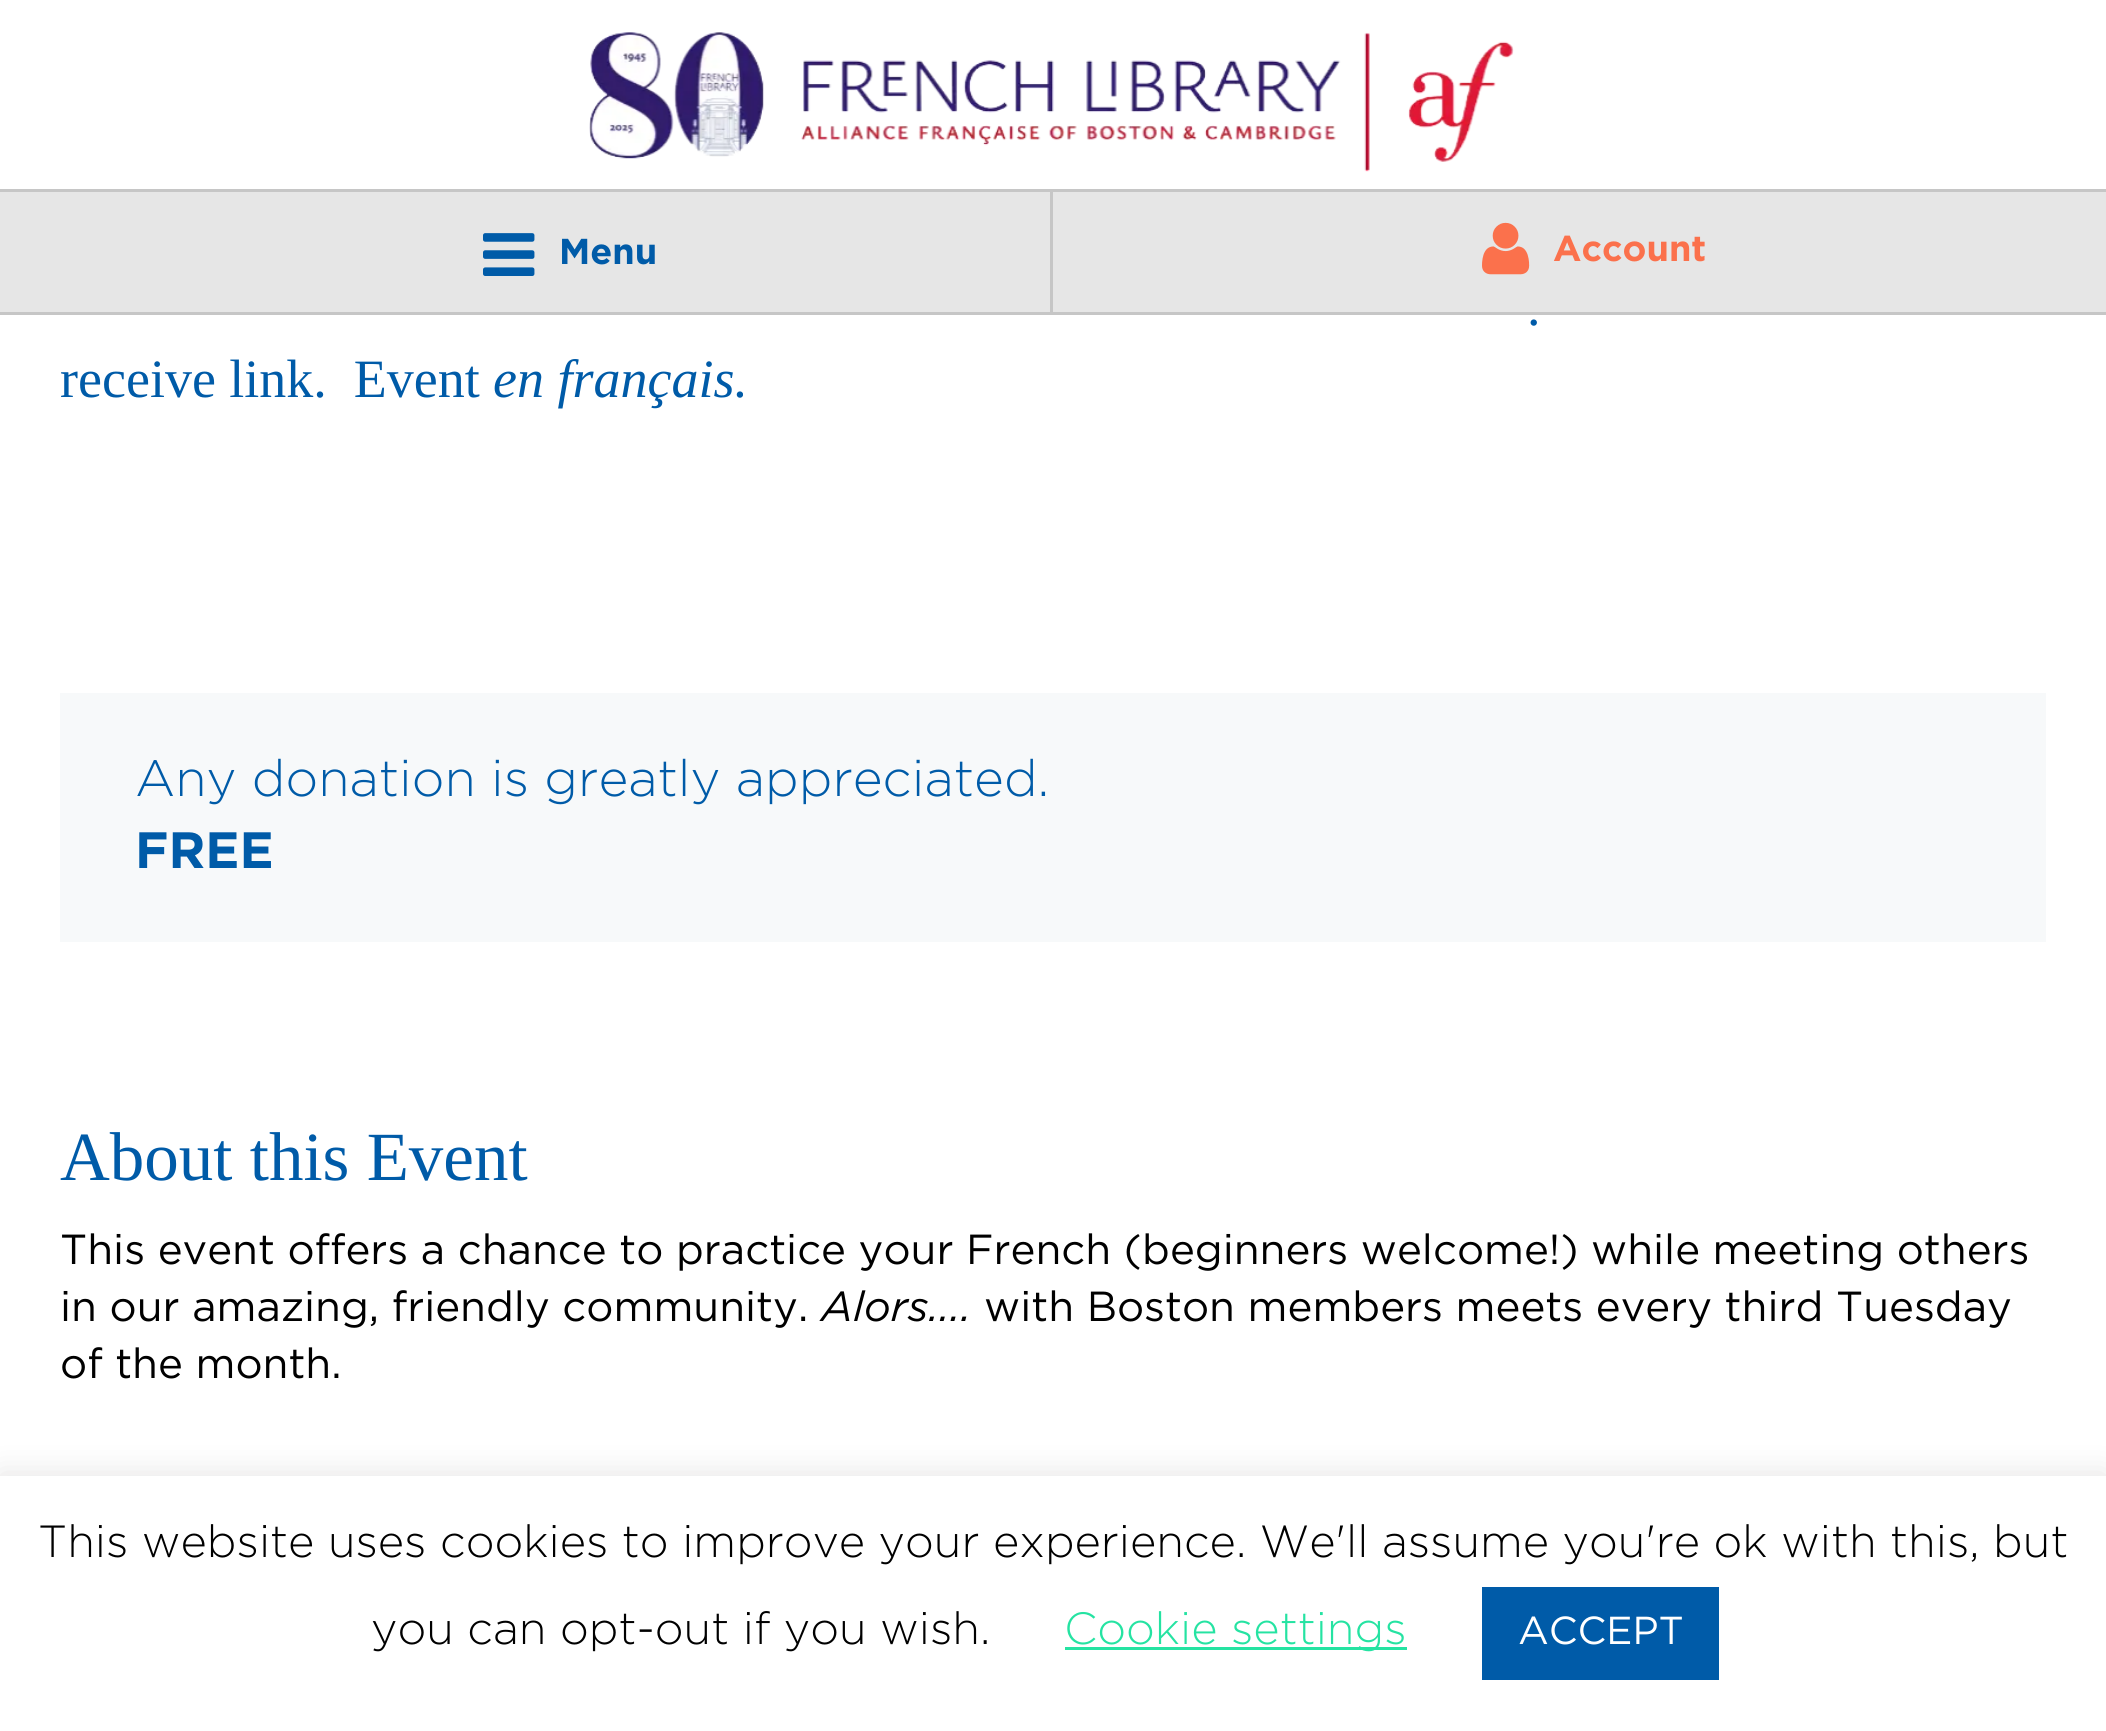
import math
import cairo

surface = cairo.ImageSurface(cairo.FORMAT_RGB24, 2106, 1731)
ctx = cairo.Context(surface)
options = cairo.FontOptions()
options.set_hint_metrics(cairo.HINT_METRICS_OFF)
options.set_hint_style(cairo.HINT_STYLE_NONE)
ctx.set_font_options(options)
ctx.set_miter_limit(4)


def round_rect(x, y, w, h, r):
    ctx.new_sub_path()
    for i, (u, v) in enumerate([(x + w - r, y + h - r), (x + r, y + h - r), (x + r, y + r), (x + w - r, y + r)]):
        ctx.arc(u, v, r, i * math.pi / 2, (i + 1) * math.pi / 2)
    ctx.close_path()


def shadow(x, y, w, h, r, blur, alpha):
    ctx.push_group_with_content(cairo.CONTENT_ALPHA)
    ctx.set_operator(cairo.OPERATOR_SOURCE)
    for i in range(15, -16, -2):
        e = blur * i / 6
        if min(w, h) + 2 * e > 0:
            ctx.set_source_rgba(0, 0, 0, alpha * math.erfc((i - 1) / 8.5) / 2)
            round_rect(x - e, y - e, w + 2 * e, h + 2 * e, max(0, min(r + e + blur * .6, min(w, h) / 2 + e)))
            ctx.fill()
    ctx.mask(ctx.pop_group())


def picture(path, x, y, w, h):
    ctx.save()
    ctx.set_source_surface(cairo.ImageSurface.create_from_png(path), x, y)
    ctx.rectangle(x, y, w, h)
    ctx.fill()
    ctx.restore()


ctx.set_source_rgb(1, 1, 1)
ctx.paint()
ctx.set_source_rgb(0.776, 0.776, 0.776)
ctx.rectangle(0, 312, 2106, 3)
ctx.fill()
picture("img1.png", 589, 32, 925, 140)
ctx.rectangle(0, 189, 2106, 3)
ctx.fill()
ctx.set_source_rgb(0.902, 0.902, 0.902)
ctx.rectangle(0, 192, 1050, 120)
ctx.fill()
ctx.set_source_rgb(0.776, 0.776, 0.776)
ctx.rectangle(1050, 192, 3, 120)
ctx.fill()
picture("img2.png", 483, 233, 52, 43)
ctx.select_font_face("Gotham", cairo.FONT_SLANT_NORMAL, cairo.FONT_WEIGHT_BOLD)
ctx.set_font_size(36)
ctx.set_source_rgb(0, 0.357, 0.659)
ctx.move_to(559, 264)
ctx.show_text("Menu")
ctx.set_source_rgb(0.902, 0.902, 0.902)
ctx.rectangle(1053, 192, 1053, 120)
ctx.fill()
picture("img3.png", 1482, 222, 48, 53)
ctx.set_source_rgb(0.984, 0.443, 0.298)
ctx.move_to(1553, 261)
ctx.show_text("Account")
ctx.select_font_face("Liberation Serif")
ctx.set_font_size(54)
ctx.set_source_rgb(0, 0.357, 0.659)
ctx.move_to(1527, 325)
ctx.show_text(".")
ctx.move_to(60, 397)
ctx.show_text("receive link.  Event")
ctx.select_font_face("Liberation Serif", cairo.FONT_SLANT_ITALIC)
ctx.move_to(493, 397)
ctx.show_text("en français.")
ctx.set_source_rgb(0.965, 0.973, 0.98)
ctx.rectangle(60, 693, 1986, 249)
ctx.fill()
ctx.select_font_face("Gotham Light")
ctx.set_font_size(51)
ctx.set_source_rgb(0, 0.357, 0.659)
ctx.move_to(135, 796)
ctx.show_text("Any donation is greatly appreciated.")
ctx.select_font_face("Gotham", cairo.FONT_SLANT_NORMAL, cairo.FONT_WEIGHT_BOLD)
ctx.move_to(135, 868)
ctx.show_text("FREE")
ctx.select_font_face("Liberation Serif")
ctx.set_font_size(69)
ctx.move_to(60, 1180)
ctx.show_text("About this Event")
ctx.select_font_face("Gotham")
ctx.set_font_size(42)
ctx.set_source_rgb(0, 0, 0)
ctx.move_to(60, 1264)
ctx.show_text("This event offers a chance to practice your French (beginners welcome!) while meeting others")
ctx.move_to(60, 1321)
ctx.show_text("in our amazing, friendly community.")
ctx.select_font_face("Gotham", cairo.FONT_SLANT_ITALIC)
ctx.move_to(821, 1321)
ctx.show_text("Alors....")
ctx.select_font_face("Gotham")
ctx.move_to(984, 1321)
ctx.show_text("with Boston members meets every third Tuesday")
ctx.move_to(60, 1378)
ctx.show_text("of the month.")
ctx.set_source_rgb(0.675, 0.671, 0.671)
shadow(0, 1473, 2106, 255, 0, 15, 0.3)
ctx.set_source_rgb(1, 1, 1)
ctx.rectangle(0, 1476, 2106, 255)
ctx.fill()
ctx.select_font_face("Gotham Light")
ctx.set_font_size(45)
ctx.set_source_rgb(0, 0, 0)
ctx.move_to(38, 1557)
ctx.show_text("This website uses cookies to improve your experience. We'll assume you're ok with this, but")
ctx.move_to(371, 1644)
ctx.show_text("you can opt-out if you wish.")
ctx.set_source_rgb(0.145, 0.89, 0.635)
ctx.rectangle(1065, 1647, 342, 3)
ctx.fill()
ctx.move_to(1064, 1644)
ctx.show_text("Cookie settings")
ctx.set_source_rgb(0, 0.357, 0.659)
ctx.rectangle(1482, 1587, 237, 93)
ctx.fill()
ctx.select_font_face("Gotham")
ctx.set_font_size(39)
ctx.set_source_rgb(1, 1, 1)
ctx.move_to(1518, 1644)
ctx.show_text("ACCEPT")
surface.write_to_png("page.png")
